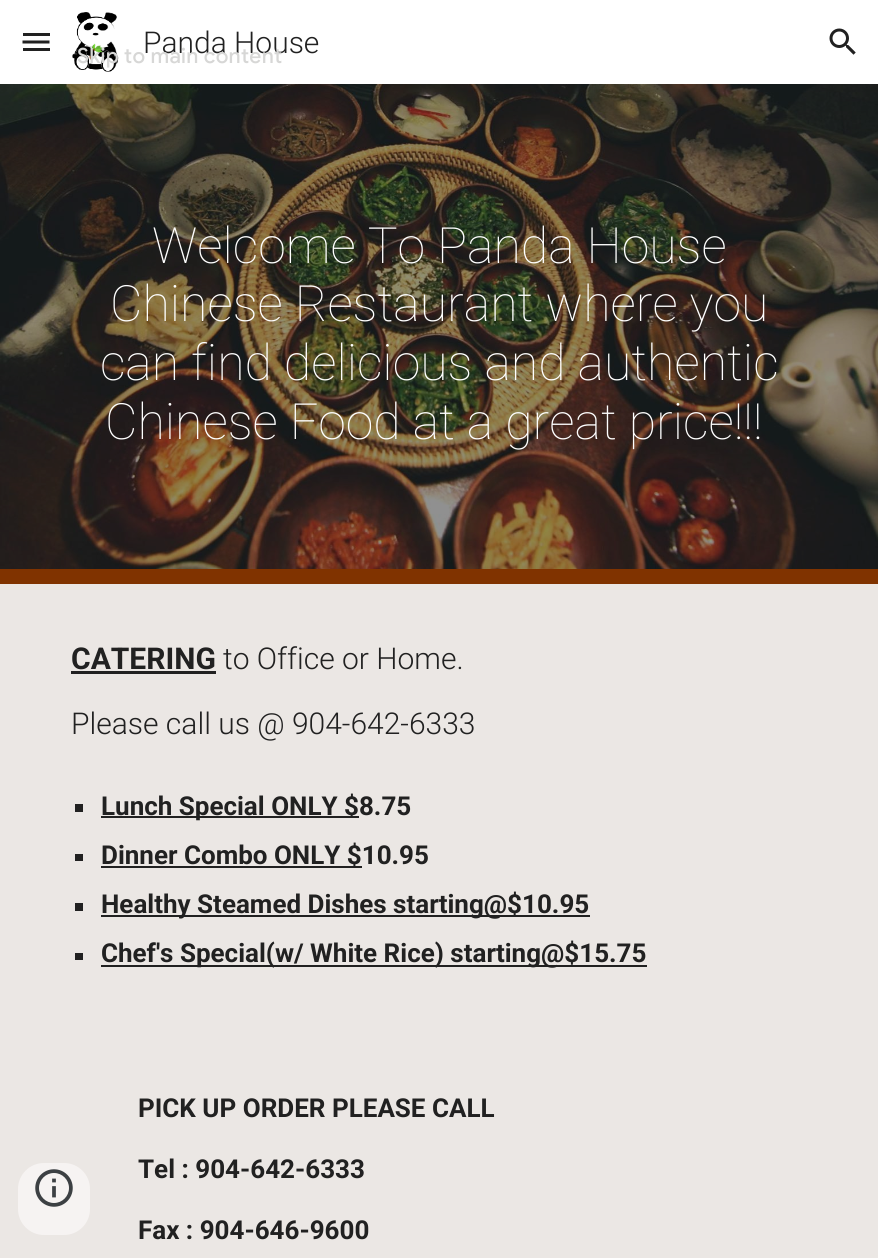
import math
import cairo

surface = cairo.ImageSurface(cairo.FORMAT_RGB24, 878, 1258)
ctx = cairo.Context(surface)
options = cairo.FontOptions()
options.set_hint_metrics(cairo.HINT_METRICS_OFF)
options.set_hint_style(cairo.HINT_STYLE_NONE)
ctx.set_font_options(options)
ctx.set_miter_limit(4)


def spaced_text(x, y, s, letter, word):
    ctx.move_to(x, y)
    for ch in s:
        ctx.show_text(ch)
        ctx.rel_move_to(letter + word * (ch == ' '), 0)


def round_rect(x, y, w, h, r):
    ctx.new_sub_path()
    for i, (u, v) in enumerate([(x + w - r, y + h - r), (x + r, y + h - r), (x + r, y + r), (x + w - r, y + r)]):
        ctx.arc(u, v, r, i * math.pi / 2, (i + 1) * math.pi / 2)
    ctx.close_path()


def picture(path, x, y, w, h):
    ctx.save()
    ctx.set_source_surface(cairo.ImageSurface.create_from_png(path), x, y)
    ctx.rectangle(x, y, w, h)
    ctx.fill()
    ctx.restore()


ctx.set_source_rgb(0.918, 0.906, 0.894)
ctx.paint()
ctx.set_source_rgb(1, 1, 1)
ctx.rectangle(0, 0, 878, 84)
ctx.fill()
ctx.set_source_rgb(0.129, 0.129, 0.129)
ctx.rectangle(23, 33, 27, 3)
ctx.fill()
ctx.new_path()
ctx.move_to(22.5, 42)
ctx.line_to(49.5, 42)
ctx.set_line_width(3)
ctx.stroke()
ctx.rectangle(23, 48, 27, 3)
ctx.fill()
picture("img1.png", 72, 12, 47, 60)
ctx.select_font_face("Roboto Light")
ctx.set_font_size(30)
ctx.move_to(143, 53)
ctx.show_text("Panda House")
picture("img2.png", 829, 28, 27, 27)
ctx.set_source_rgb(0.961, 0.953, 0.949)
round_rect(18, 1163, 72, 72, 26)
ctx.fill()
picture("img3.png", 35, 1169, 38, 38)
picture("img4.png", 0, 84, 878, 485)
ctx.set_source_rgb(0.502, 0.2, 0)
ctx.rectangle(0, 569, 878, 15)
ctx.fill()
ctx.select_font_face("Roboto Thin")
ctx.set_font_size(50)
ctx.set_source_rgb(1, 1, 1)
ctx.move_to(152, 263)
ctx.show_text("Welcome To Panda House")
ctx.move_to(110, 321)
ctx.show_text("Chinese Restaurant where you")
ctx.move_to(100, 380)
ctx.show_text("can find delicious and authentic")
ctx.move_to(105, 439)
ctx.show_text("Chinese Food at a great price!!!")
ctx.select_font_face("Roboto", cairo.FONT_SLANT_NORMAL, cairo.FONT_WEIGHT_BOLD)
ctx.set_font_size(30)
ctx.set_source_rgb(0.129, 0.129, 0.129)
ctx.move_to(71, 669)
ctx.show_text("CATERING")
ctx.rectangle(71, 671, 145, 3)
ctx.fill()
ctx.select_font_face("Roboto Light")
ctx.move_to(223, 669)
ctx.show_text("to Office or Home.")
ctx.move_to(71, 734)
ctx.show_text("Please call us @ 904-642-6333")
ctx.rectangle(75, 804, 8, 8)
ctx.fill()
ctx.rectangle(101, 816, 258, 2)
ctx.fill()
ctx.select_font_face("Roboto", cairo.FONT_SLANT_NORMAL, cairo.FONT_WEIGHT_BOLD)
ctx.set_font_size(26)
ctx.move_to(101, 815)
ctx.show_text("Lunch Special ONLY $8.75")
ctx.rectangle(75, 854, 8, 7)
ctx.fill()
ctx.rectangle(101, 866, 261, 2)
ctx.fill()
ctx.move_to(101, 864)
ctx.show_text("Dinner Combo ONLY $10.95")
ctx.rectangle(75, 903, 8, 8)
ctx.fill()
ctx.rectangle(101, 915, 489, 2)
ctx.fill()
ctx.move_to(101, 913)
ctx.show_text("Healthy Steamed Dishes starting@$10.95")
ctx.rectangle(75, 953, 8, 7)
ctx.fill()
ctx.rectangle(101, 965, 546, 2)
ctx.fill()
ctx.move_to(101, 962)
ctx.show_text("Chef's Special(w/ White Rice) starting@$15.75")
ctx.move_to(138, 1117)
ctx.show_text("PICK UP ORDER PLEASE CALL")
ctx.move_to(138, 1178)
ctx.show_text("Tel : 904-642-6333")
ctx.move_to(138, 1239)
ctx.show_text("Fax : 904-646-9600")
ctx.select_font_face("Google Sans Medium")
ctx.set_font_size(21)
ctx.set_source_rgb(0.843, 0.843, 0.839)
spaced_text(77, 63, "Skip to main content", 0.25, 0)
surface.write_to_png("page.png")
